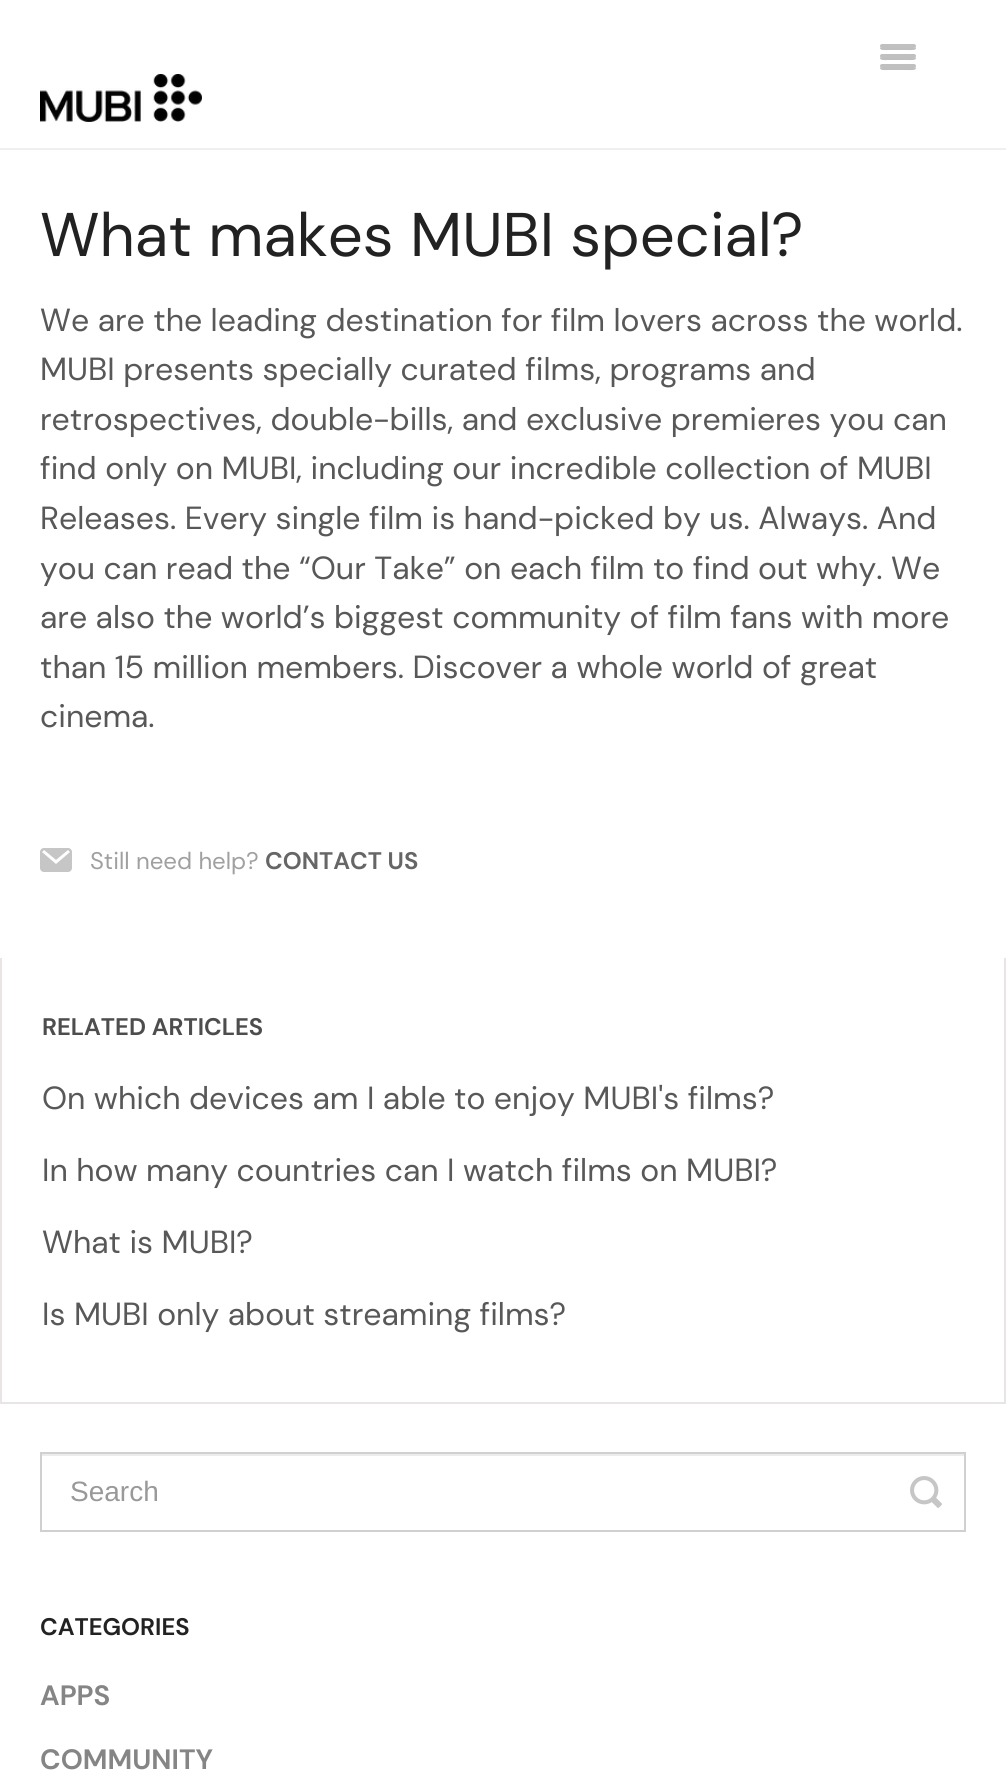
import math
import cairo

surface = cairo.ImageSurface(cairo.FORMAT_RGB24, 1006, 1775)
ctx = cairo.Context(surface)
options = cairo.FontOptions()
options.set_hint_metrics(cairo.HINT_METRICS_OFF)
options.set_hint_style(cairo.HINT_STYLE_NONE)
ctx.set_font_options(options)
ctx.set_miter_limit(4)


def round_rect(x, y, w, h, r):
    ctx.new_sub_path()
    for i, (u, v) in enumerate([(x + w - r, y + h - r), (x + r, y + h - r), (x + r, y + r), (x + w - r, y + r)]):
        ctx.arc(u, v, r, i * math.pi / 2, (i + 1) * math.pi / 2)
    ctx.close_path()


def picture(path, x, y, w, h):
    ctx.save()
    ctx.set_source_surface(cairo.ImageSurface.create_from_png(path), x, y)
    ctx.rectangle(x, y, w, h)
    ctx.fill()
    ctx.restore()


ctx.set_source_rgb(1, 1, 1)
ctx.paint()
ctx.set_source_rgb(0.937, 0.937, 0.937)
ctx.rectangle(0, 148, 1006, 2)
ctx.fill()
ctx.set_source_rgb(0.749, 0.749, 0.749)
ctx.new_path()
ctx.move_to(880.5, 47)
ctx.curve_to(878, 51, 887, 50, 887.5, 50)
ctx.line_to(908.5, 50)
ctx.curve_to(909, 50, 918, 51, 915.5, 47)
ctx.curve_to(915.5, 47.5, 914.5, 48, 914, 48)
ctx.line_to(882, 48)
ctx.curve_to(881.5, 48, 880.5, 47.5, 880.5, 47)
ctx.close_path()
ctx.fill()
ctx.set_source_rgb(0.753, 0.753, 0.753)
round_rect(880, 44, 36, 4, 2)
ctx.fill()
ctx.set_source_rgb(0.749, 0.749, 0.749)
ctx.new_path()
ctx.move_to(880.5, 57)
ctx.curve_to(878, 61, 887, 60, 887.5, 60)
ctx.line_to(908.5, 60)
ctx.curve_to(909, 60, 918, 61, 915.5, 57)
ctx.curve_to(915.5, 57.5, 914.5, 58, 914, 58)
ctx.line_to(882, 58)
ctx.curve_to(881.5, 58, 880.5, 57.5, 880.5, 57)
ctx.close_path()
ctx.fill()
ctx.set_source_rgb(0.753, 0.753, 0.753)
round_rect(880, 54, 36, 4, 2)
ctx.fill()
ctx.set_source_rgb(0.749, 0.749, 0.749)
ctx.new_path()
ctx.move_to(880.5, 67)
ctx.curve_to(878, 71, 887, 70, 887.5, 70)
ctx.line_to(908.5, 70)
ctx.curve_to(909, 70, 918, 71, 915.5, 67)
ctx.curve_to(915.5, 67.5, 914.5, 68, 914, 68)
ctx.line_to(882, 68)
ctx.curve_to(881.5, 68, 880.5, 67.5, 880.5, 67)
ctx.close_path()
ctx.fill()
ctx.set_source_rgb(0.753, 0.753, 0.753)
round_rect(880, 64, 36, 4, 2)
ctx.fill()
picture("img1.png", 40, 74, 162, 48)
ctx.select_font_face("DM Sans")
ctx.set_font_size(61.6)
ctx.set_source_rgb(0.133, 0.133, 0.133)
ctx.move_to(40, 256)
ctx.show_text("What makes MUBI special?")
ctx.set_font_size(32)
ctx.set_source_rgb(0.345, 0.345, 0.345)
ctx.move_to(40, 331)
ctx.show_text("We are the leading destination for film lovers across the world.")
ctx.move_to(40, 380)
ctx.show_text("MUBI presents specially curated films, programs and")
ctx.move_to(40, 430)
ctx.show_text("retrospectives, double-bills, and exclusive premieres you can")
ctx.move_to(40, 479)
ctx.show_text("find only on MUBI, including our incredible collection of MUBI")
ctx.move_to(40, 529)
ctx.show_text("Releases. Every single film is hand-picked by us. Always. And")
ctx.move_to(40, 579)
ctx.show_text("you can read the “Our Take” on each film to find out why. We")
ctx.move_to(40, 628)
ctx.show_text("are also the world’s biggest community of film fans with more")
ctx.move_to(40, 678)
ctx.show_text("than 15 million members. Discover a whole world of great")
ctx.move_to(40, 727)
ctx.show_text("cinema.")
picture("img2.png", 40, 848, 32, 24)
ctx.set_font_size(24)
ctx.set_source_rgb(0.627, 0.627, 0.627)
ctx.move_to(90, 869)
ctx.show_text("Still need help?")
ctx.select_font_face("DM Sans", cairo.FONT_SLANT_NORMAL, cairo.FONT_WEIGHT_BOLD)
ctx.set_source_rgb(0.4, 0.4, 0.4)
ctx.move_to(265, 869)
ctx.show_text("CONTACT US")
ctx.set_source_rgb(0.914, 0.898, 0.898)
ctx.rectangle(1004, 958, 2, 446)
ctx.fill()
ctx.rectangle(0, 1402, 1006, 2)
ctx.fill()
ctx.rectangle(0, 958, 2, 446)
ctx.fill()
ctx.set_source_rgb(0.302, 0.302, 0.302)
ctx.move_to(42, 1035)
ctx.show_text("RELATED ARTICLES")
ctx.select_font_face("DM Sans")
ctx.set_font_size(32)
ctx.set_source_rgb(0.345, 0.345, 0.345)
ctx.move_to(42, 1109)
ctx.show_text("On which devices am I able to enjoy MUBI's films?")
ctx.move_to(42, 1181)
ctx.show_text("In how many countries can I watch films on MUBI?")
ctx.move_to(42, 1253)
ctx.show_text("What is MUBI?")
ctx.move_to(42, 1325)
ctx.show_text("Is MUBI only about streaming films?")
ctx.set_source_rgb(0.925, 0.925, 0.925)
ctx.rectangle(42, 1454, 922, 2)
ctx.fill()
ctx.rectangle(41, 1453, 924, 78)
ctx.set_source_rgb(0.816, 0.816, 0.816)
ctx.stroke()
ctx.select_font_face("Liberation Sans")
ctx.set_font_size(28)
ctx.set_source_rgb(0.6, 0.6, 0.6)
ctx.move_to(70, 1501)
ctx.show_text("Search")
picture("img3.png", 910, 1476, 32, 32)
ctx.select_font_face("DM Sans", cairo.FONT_SLANT_NORMAL, cairo.FONT_WEIGHT_BOLD)
ctx.set_font_size(24)
ctx.set_source_rgb(0.133, 0.133, 0.133)
ctx.move_to(40, 1635)
ctx.show_text("CATEGORIES")
ctx.set_font_size(28)
ctx.set_source_rgb(0.522, 0.522, 0.522)
ctx.move_to(40, 1705)
ctx.show_text("APPS")
ctx.move_to(40, 1769)
ctx.show_text("COMMUNITY")
surface.write_to_png("page.png")
